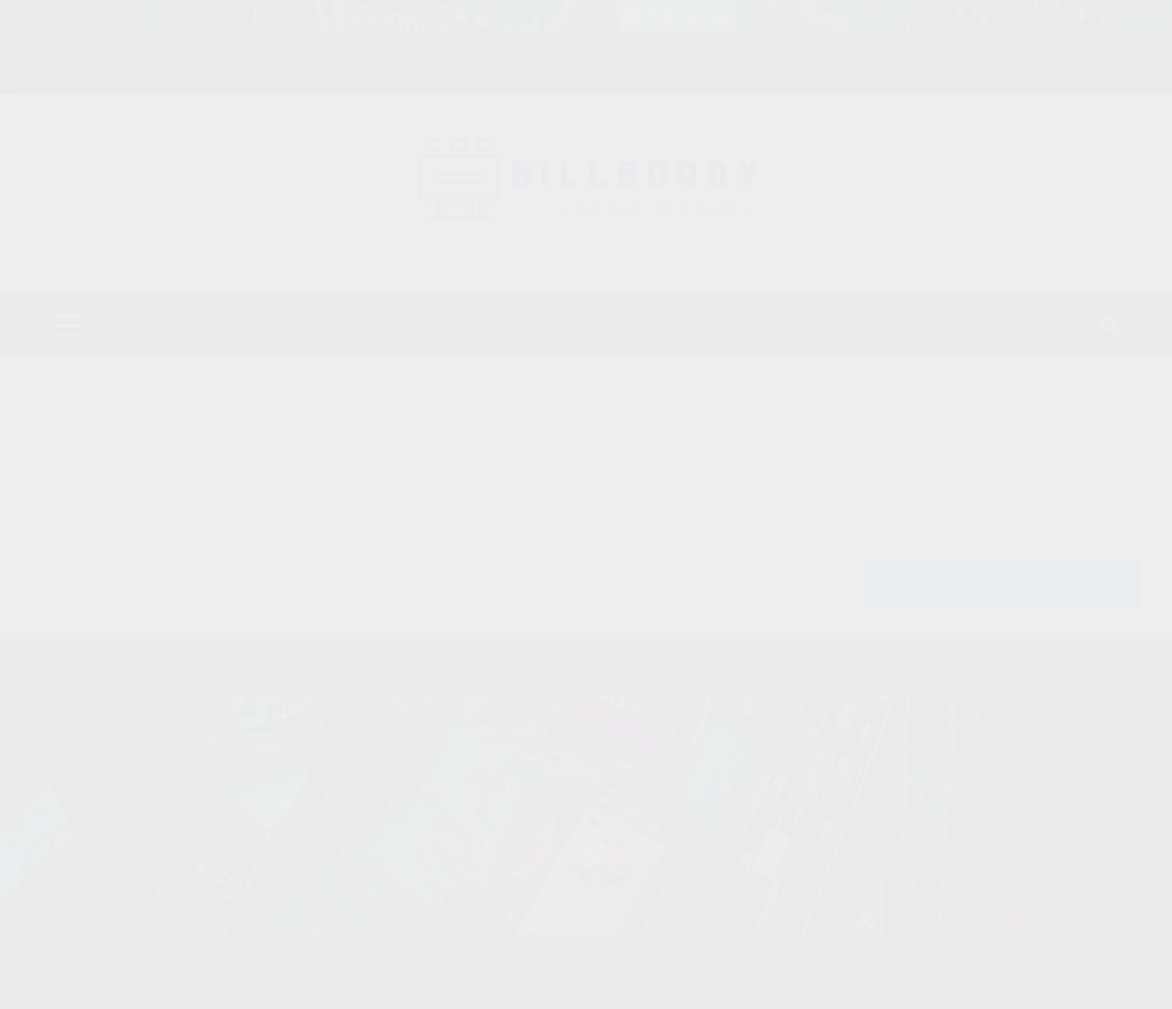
import math
import cairo

surface = cairo.ImageSurface(cairo.FORMAT_RGB24, 1172, 1009)
ctx = cairo.Context(surface)
options = cairo.FontOptions()
options.set_hint_metrics(cairo.HINT_METRICS_OFF)
options.set_hint_style(cairo.HINT_STYLE_NONE)
ctx.set_font_options(options)
ctx.set_miter_limit(4)


def picture(path, x, y, w, h):
    ctx.save()
    ctx.set_source_surface(cairo.ImageSurface.create_from_png(path), x, y)
    ctx.rectangle(x, y, w, h)
    ctx.fill()
    ctx.restore()


ctx.set_source_rgb(1, 1, 1)
ctx.paint()
picture("img1.png", 0, 0, 1172, 934)
ctx.set_source_rgb(0.933, 0.933, 0.933)
ctx.rectangle(0, 94, 1172, 545)
ctx.fill()
ctx.set_source_rgb(0.918, 0.918, 0.918)
ctx.rectangle(18, 31, 1154, 63)
ctx.fill()
picture("img2.png", 418, 138, 340, 83)
ctx.rectangle(0, 294, 1172, 62)
ctx.fill()
ctx.set_source_rgb(0.933, 0.933, 0.933)
ctx.rectangle(51, 324, 29, 3)
ctx.fill()
ctx.rectangle(51, 314, 29, 3)
ctx.fill()
ctx.rectangle(51, 334, 29, 3)
ctx.fill()
picture("img3.png", 1101, 315, 18, 19)
ctx.set_source_rgb(0.918, 0.922, 0.933)
ctx.new_path()
ctx.move_to(864, 560)
ctx.line_to(1137, 560)
ctx.curve_to(1139, 560, 1141, 562, 1141, 564)
ctx.line_to(1141, 604)
ctx.curve_to(1141, 606, 1139, 608, 1137, 608)
ctx.line_to(864, 608)
ctx.close_path()
ctx.fill()
ctx.set_source_rgb(0.918, 0.918, 0.918)
ctx.rectangle(0, 639, 1020, 55)
ctx.fill()
ctx.rectangle(0, 934, 1172, 75)
ctx.fill()
surface.write_to_png("page.png")
